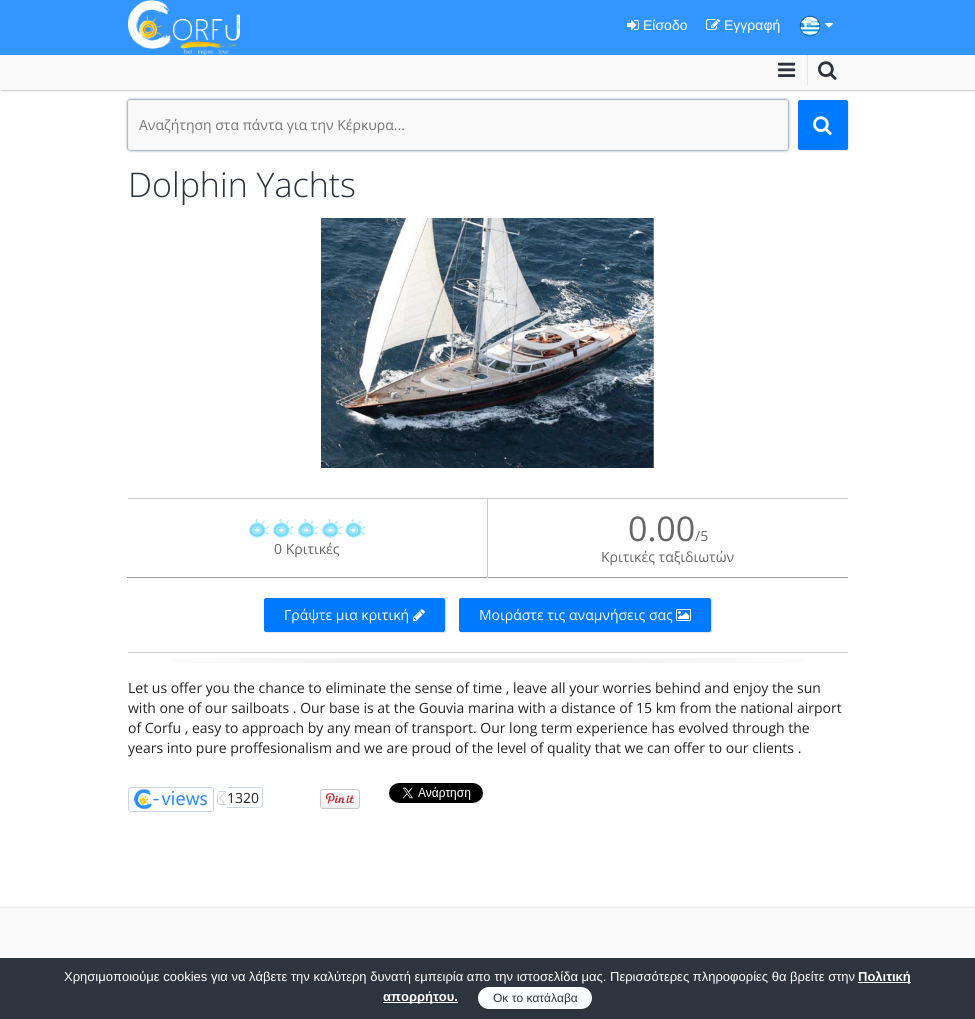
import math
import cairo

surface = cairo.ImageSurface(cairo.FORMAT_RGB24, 975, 1019)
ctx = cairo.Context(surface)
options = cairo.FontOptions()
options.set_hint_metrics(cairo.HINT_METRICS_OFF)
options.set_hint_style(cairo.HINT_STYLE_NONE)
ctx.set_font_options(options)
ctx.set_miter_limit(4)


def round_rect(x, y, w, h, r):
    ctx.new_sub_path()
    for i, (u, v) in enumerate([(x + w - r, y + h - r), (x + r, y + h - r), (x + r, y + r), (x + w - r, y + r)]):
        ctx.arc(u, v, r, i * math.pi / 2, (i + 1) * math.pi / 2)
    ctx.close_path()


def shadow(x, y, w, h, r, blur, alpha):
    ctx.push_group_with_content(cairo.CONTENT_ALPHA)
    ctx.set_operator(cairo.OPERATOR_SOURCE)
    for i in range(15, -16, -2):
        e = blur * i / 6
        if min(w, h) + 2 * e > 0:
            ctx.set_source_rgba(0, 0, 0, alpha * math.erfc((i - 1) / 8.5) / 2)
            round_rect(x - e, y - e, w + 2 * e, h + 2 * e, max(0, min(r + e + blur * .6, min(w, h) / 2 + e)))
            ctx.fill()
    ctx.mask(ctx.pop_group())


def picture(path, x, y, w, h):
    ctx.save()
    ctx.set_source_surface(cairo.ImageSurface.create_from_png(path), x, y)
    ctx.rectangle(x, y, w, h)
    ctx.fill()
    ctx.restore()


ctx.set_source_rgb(1, 1, 1)
ctx.paint()
ctx.set_source_rgb(0.2, 0.584, 1)
ctx.rectangle(0, 0, 975, 55)
ctx.fill()
picture("img1.png", 128, 0, 112, 55)
picture("img2.png", 627, 20, 12, 10)
ctx.select_font_face("Liberation Sans")
ctx.set_font_size(14)
ctx.set_source_rgb(1, 1, 1)
ctx.move_to(643, 30)
ctx.show_text("Είσοδο")
picture("img3.png", 706, 19, 14, 11)
ctx.move_to(724, 30)
ctx.show_text("Εγγραφή")
picture("img4.png", 799, 15, 22, 22)
picture("img5.png", 825, 23, 8, 5)
ctx.set_source_rgb(0, 0, 0)
shadow(1, 56, 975, 35, 0, 0.5, 0.2)
ctx.set_source_rgb(0.976, 0.976, 0.976)
ctx.rectangle(0, 55, 975, 35)
ctx.fill()
picture("img6.png", 778, 62, 18, 15)
ctx.set_source_rgb(0.898, 0.898, 0.898)
ctx.rectangle(807, 55, 1, 30)
ctx.fill()
picture("img7.png", 818, 61, 19, 19)
ctx.set_source_rgb(0.196, 0.322, 0.455)
shadow(128, 100, 660, 50, 2, 1.5, 1)
ctx.set_source_rgb(0.976, 0.976, 0.976)
round_rect(128.5, 100.5, 659, 49, 1.5)
ctx.fill_preserve()
ctx.set_source_rgb(0.945, 0.945, 0.945)
ctx.set_line_width(1)
ctx.stroke()
ctx.select_font_face("Open Sans")
ctx.set_source_rgb(0.459, 0.459, 0.459)
ctx.move_to(139, 130)
ctx.show_text("Αναζήτηση στα πάντα για την Κέρκυρα...")
ctx.set_source_rgb(0, 0, 0)
shadow(799, 101, 50, 50, 2, 0.5, 0.1)
ctx.set_source_rgb(0, 0.478, 1)
round_rect(798, 100, 50, 50, 2)
ctx.fill()
picture("img8.png", 813, 116, 19, 19)
ctx.select_font_face("Open Sans Light")
ctx.set_font_size(34)
ctx.set_source_rgb(0.176, 0.204, 0.243)
ctx.move_to(128, 197)
ctx.show_text("Dolphin Yachts")
picture("img9.png", 321, 218, 333, 250)
ctx.set_source_rgb(0.8, 0.8, 0.8)
ctx.rectangle(128, 498, 720, 1)
ctx.fill()
ctx.rectangle(128, 652, 720, 1)
ctx.fill()
ctx.set_source_rgb(0.6, 0.6, 0.6)
ctx.rectangle(127, 577, 721, 1)
ctx.fill()
picture("img10.png", 249, 519, 117, 19)
ctx.select_font_face("Open Sans")
ctx.set_font_size(14)
ctx.set_source_rgb(0.4, 0.4, 0.4)
ctx.move_to(274, 554)
ctx.show_text("0 Κριτικές")
ctx.set_source_rgb(0.8, 0.8, 0.8)
ctx.rectangle(487, 498, 1, 80)
ctx.fill()
ctx.set_font_size(34)
ctx.set_source_rgb(0.4, 0.4, 0.4)
ctx.move_to(628, 541)
ctx.show_text("0.00")
ctx.set_font_size(14)
ctx.move_to(695, 541)
ctx.show_text("/5")
ctx.move_to(601, 562)
ctx.show_text("Κριτικές ταξιδιωτών")
ctx.set_source_rgb(0, 0, 0)
shadow(265, 599, 181, 34, 2, 0.5, 0.1)
ctx.set_source_rgb(0, 0.478, 1)
round_rect(264, 598, 181, 34, 2)
ctx.fill()
ctx.set_source_rgb(1, 1, 1)
ctx.move_to(284, 620)
ctx.show_text("Γράψτε μια κριτική")
picture("img11.png", 413, 609, 12, 12)
ctx.set_source_rgb(0, 0, 0)
shadow(460, 599, 252, 34, 2, 0.5, 0.1)
ctx.set_source_rgb(0, 0.478, 1)
round_rect(459, 598, 252, 34, 2)
ctx.fill()
ctx.set_source_rgb(1, 1, 1)
ctx.move_to(479, 620)
ctx.show_text("Μοιράστε τις αναμνήσεις σας")
picture("img12.png", 676, 609, 15, 12)
gradient = cairo.LinearGradient(128, 661, 848, 661)
gradient.add_color_stop_rgba(0, 1, 1, 1, 1)
gradient.add_color_stop_rgba(0.33, 0.945, 0.945, 0.945, 1)
gradient.add_color_stop_rgba(0.66, 0.945, 0.945, 0.945, 1)
gradient.add_color_stop_rgba(1, 1, 1, 1, 1)
ctx.set_source(gradient)
ctx.rectangle(170, 658, 634, 5)
ctx.fill()
ctx.set_source_rgb(0.137, 0.137, 0.141)
ctx.move_to(128, 693)
ctx.show_text("Let us offer you the chance to eliminate the sense of time , leave all your worries behind and enjoy the sun")
ctx.move_to(128, 713)
ctx.show_text("with one of our sailboats . Our base is at the Gouvia marina with a distance of 15 km from the national airport")
ctx.move_to(128, 733)
ctx.show_text("of Corfu , easy to approach by any mean of transport. Our long term experience has evolved through the")
ctx.move_to(128, 753)
ctx.show_text("years into pure proffesionalism and we are proud of the level of quality that we can offer to our clients .")
round_rect(128.5, 787.5, 85, 24, 2.5)
ctx.set_source_rgb(0.804, 0.835, 0.898)
ctx.stroke()
picture("img13.png", 134, 789, 73, 20)
ctx.set_fill_rule(cairo.FILL_RULE_EVEN_ODD)
ctx.new_path()
ctx.move_to(220, 791)
ctx.line_to(226, 791)
ctx.line_to(226, 805)
ctx.line_to(219, 805)
ctx.curve_to(216, 803.5, 217, 800, 217, 798)
ctx.curve_to(217, 795.5, 216.5, 791, 220, 791)
ctx.close_path()
ctx.move_to(220, 792)
ctx.line_to(226, 792)
ctx.line_to(226, 804)
ctx.curve_to(218.5, 804, 218, 805.5, 218, 798)
ctx.curve_to(218, 796.5, 217, 792, 220, 792)
ctx.close_path()
ctx.fill()
ctx.set_source_rgb(1, 1, 1)
ctx.rectangle(219, 791, 5, 14)
ctx.fill()
ctx.set_source_rgb(0.804, 0.835, 0.898)
ctx.rectangle(219, 791, 5, 1)
ctx.fill()
ctx.rectangle(219, 804, 5, 1)
ctx.fill()
ctx.new_path()
ctx.move_to(227, 787)
ctx.line_to(260, 787)
ctx.curve_to(261.5, 787, 263, 788.5, 263, 790)
ctx.line_to(263, 805)
ctx.curve_to(263, 806.5, 261.5, 808, 260, 808)
ctx.line_to(227, 808)
ctx.close_path()
ctx.move_to(227, 788)
ctx.line_to(249, 788)
ctx.curve_to(263, 788, 262, 785, 262, 797.5)
ctx.curve_to(262, 810, 263, 807, 249, 807)
ctx.line_to(227, 807)
ctx.close_path()
ctx.fill()
ctx.set_source_rgb(0.843, 0.843, 0.843)
ctx.set_fill_rule(cairo.FILL_RULE_WINDING)
ctx.new_path()
ctx.move_to(224, 792)
ctx.line_to(224, 804)
ctx.line_to(219, 798)
ctx.close_path()
ctx.fill()
ctx.set_source_rgb(1, 1, 1)
ctx.new_path()
ctx.move_to(226, 792)
ctx.line_to(226, 804)
ctx.line_to(221, 798)
ctx.close_path()
ctx.fill()
ctx.set_source_rgb(0.137, 0.137, 0.141)
ctx.move_to(227, 803)
ctx.show_text("1320")
picture("img14.png", 320, 789, 40, 20)
picture("img15.png", 389, 783, 94, 20)
ctx.set_source_rgb(0, 0, 0)
shadow(-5, 908, 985, 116, 0, 1.5, 0.2)
ctx.set_source_rgb(0.976, 0.976, 0.976)
ctx.rectangle(-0.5, 908.5, 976, 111)
ctx.fill_preserve()
ctx.set_source_rgb(0.965, 0.965, 0.965)
ctx.stroke()
ctx.set_source_rgb(0.2, 0.584, 1)
round_rect(144.5, 984.5, 687, 34, 1.5)
ctx.fill_preserve()
ctx.set_source_rgb(0.945, 0.945, 0.945)
ctx.stroke()
ctx.new_path()
ctx.move_to(818.5, 999.5)
ctx.line_to(822.5, 1003.5)
ctx.line_to(826.5, 999.5)
ctx.set_source_rgb(1, 1, 1)
ctx.set_line_width(2)
ctx.stroke()
ctx.set_source_rgba(0.176, 0.204, 0.243, 0.99)
ctx.rectangle(0, 958, 975, 61)
ctx.fill()
ctx.select_font_face("Liberation Sans")
ctx.set_font_size(13)
ctx.set_source_rgb(1, 1, 1)
ctx.move_to(64, 981)
ctx.show_text("Χρησιμοποιούμε cookies για να λάβετε την καλύτερη δυνατή εμπειρία απο την ιστοσελίδα μας. Περισσότερες πληροφορίες θα βρείτε στην")
ctx.rectangle(858, 982, 53, 1)
ctx.fill()
ctx.select_font_face("Liberation Sans", cairo.FONT_SLANT_NORMAL, cairo.FONT_WEIGHT_BOLD)
ctx.move_to(858, 981)
ctx.show_text("Πολιτική")
ctx.set_source_rgb(0.992, 0.996, 1)
ctx.rectangle(383, 1002, 75, 1)
ctx.fill()
ctx.set_source_rgb(1, 1, 1)
ctx.move_to(383, 1001)
ctx.show_text("απορρήτου.")
ctx.set_source_rgb(0.992, 0.996, 1)
round_rect(478, 987, 114, 22, 11)
ctx.fill()
ctx.select_font_face("Liberation Sans")
ctx.set_font_size(12)
ctx.set_source_rgb(0.176, 0.204, 0.243)
ctx.move_to(493, 1002)
ctx.show_text("Οκ το κατάλαβα")
surface.write_to_png("page.png")
